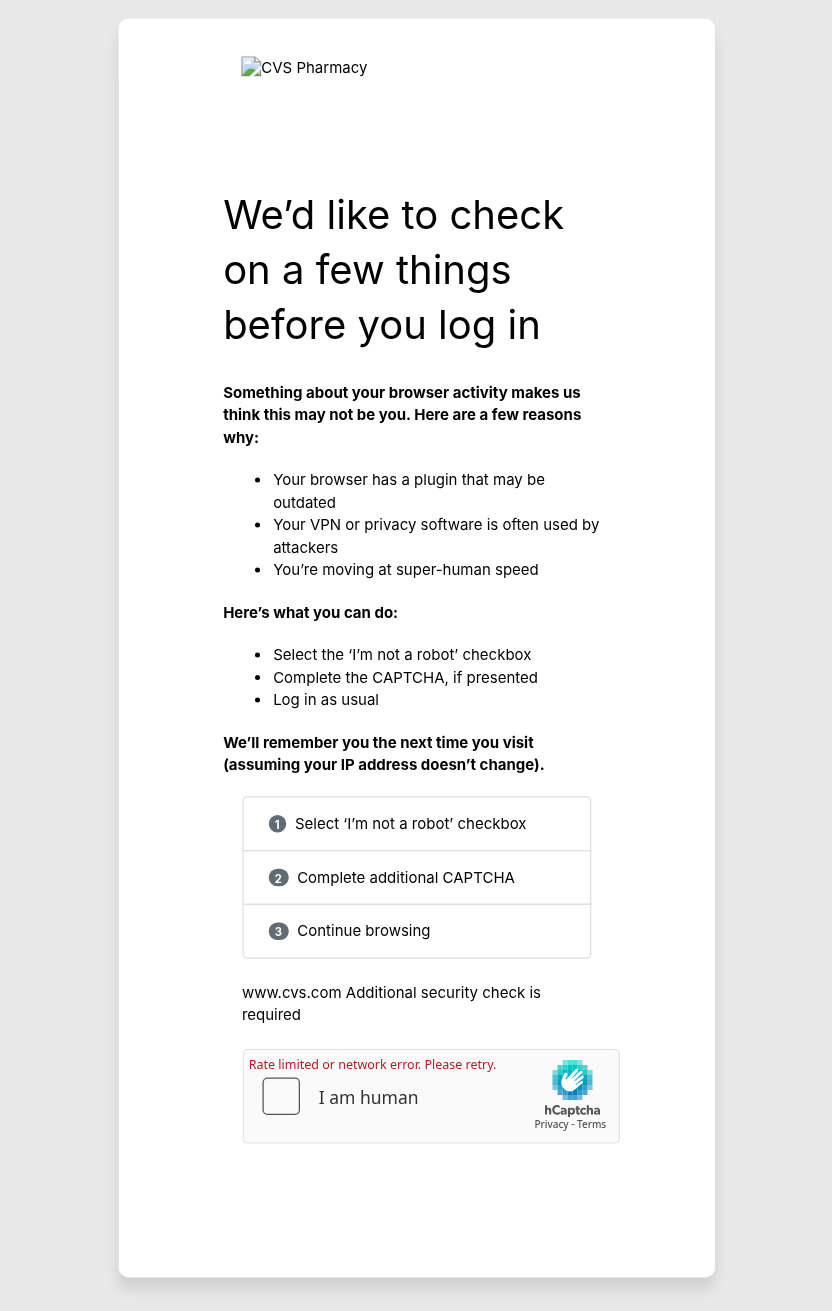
import math
import cairo

surface = cairo.ImageSurface(cairo.FORMAT_RGB24, 832, 1311)
ctx = cairo.Context(surface)
options = cairo.FontOptions()
options.set_hint_metrics(cairo.HINT_METRICS_OFF)
options.set_hint_style(cairo.HINT_STYLE_NONE)
ctx.set_font_options(options)
ctx.set_miter_limit(4)


def picture(path, x, y, w, h):
    ctx.save()
    ctx.set_source_surface(cairo.ImageSurface.create_from_png(path), x, y)
    ctx.rectangle(x, y, w, h)
    ctx.fill()
    ctx.restore()


ctx.set_source_rgb(1, 1, 1)
ctx.paint()
picture("img1.png", 0, 0, 832, 1311)
surface.write_to_png("page.png")
